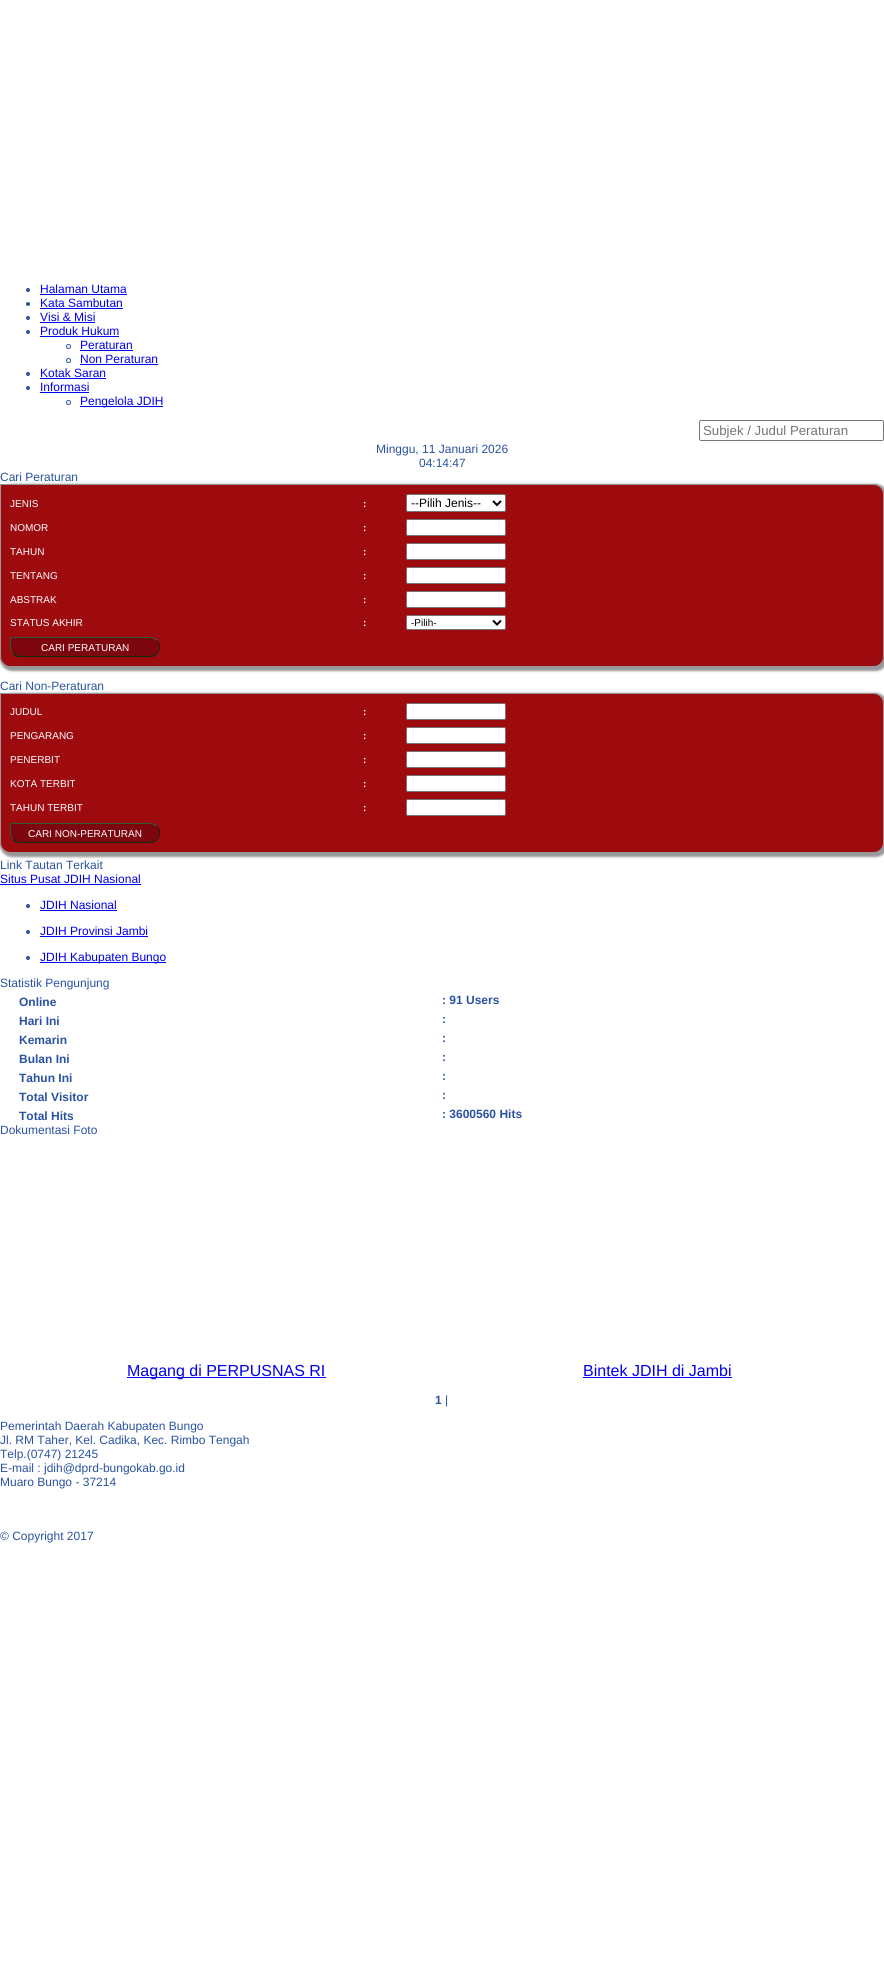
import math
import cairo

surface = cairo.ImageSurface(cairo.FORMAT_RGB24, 884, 1975)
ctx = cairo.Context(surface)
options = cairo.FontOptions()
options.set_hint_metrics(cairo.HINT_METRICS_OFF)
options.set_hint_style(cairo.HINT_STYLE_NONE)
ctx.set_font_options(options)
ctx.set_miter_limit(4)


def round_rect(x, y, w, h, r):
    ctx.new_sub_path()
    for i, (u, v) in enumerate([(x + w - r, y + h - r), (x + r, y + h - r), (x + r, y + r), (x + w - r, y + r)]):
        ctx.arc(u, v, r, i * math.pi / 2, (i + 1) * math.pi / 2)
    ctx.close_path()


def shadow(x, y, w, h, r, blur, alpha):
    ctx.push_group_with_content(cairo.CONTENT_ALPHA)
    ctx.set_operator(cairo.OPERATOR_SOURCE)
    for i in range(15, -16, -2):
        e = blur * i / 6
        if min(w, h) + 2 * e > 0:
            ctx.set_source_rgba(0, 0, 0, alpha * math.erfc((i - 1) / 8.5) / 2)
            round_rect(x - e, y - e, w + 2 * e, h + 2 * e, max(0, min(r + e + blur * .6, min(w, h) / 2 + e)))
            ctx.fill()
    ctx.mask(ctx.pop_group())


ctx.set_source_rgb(1, 1, 1)
ctx.paint()
ctx.set_source_rgb(0.161, 0.322, 0.639)
ctx.arc(28, 290, 2, 0, 2 * math.pi)
ctx.fill()
ctx.select_font_face("Liberation Sans")
ctx.set_font_size(12)
ctx.set_source_rgb(0, 0, 0.933)
ctx.move_to(40, 293)
ctx.show_text("Halaman Utama")
ctx.rectangle(40, 294, 87, 1)
ctx.fill()
ctx.set_source_rgb(0.161, 0.322, 0.639)
ctx.arc(28, 304, 2, 0, 2 * math.pi)
ctx.fill()
ctx.set_source_rgb(0, 0, 0.933)
ctx.move_to(40, 307)
ctx.show_text("Kata Sambutan")
ctx.rectangle(40, 308, 83, 1)
ctx.fill()
ctx.set_source_rgb(0.161, 0.322, 0.639)
ctx.arc(28, 318, 2, 0, 2 * math.pi)
ctx.fill()
ctx.set_source_rgb(0, 0, 0.933)
ctx.move_to(40, 321)
ctx.show_text("Visi & Misi")
ctx.rectangle(40, 322, 55, 1)
ctx.fill()
ctx.set_source_rgb(0.161, 0.322, 0.639)
ctx.arc(28, 332, 2, 0, 2 * math.pi)
ctx.fill()
ctx.set_source_rgb(0, 0, 0.933)
ctx.move_to(40, 335)
ctx.show_text("Produk Hukum")
ctx.rectangle(40, 336, 79, 1)
ctx.fill()
ctx.arc(68.5, 346.5, 2, 0, 2 * math.pi)
ctx.set_source_rgb(0.161, 0.322, 0.639)
ctx.set_line_width(1)
ctx.stroke()
ctx.set_source_rgb(0, 0, 0.933)
ctx.move_to(80, 349)
ctx.show_text("Peraturan")
ctx.rectangle(80, 350, 53, 1)
ctx.fill()
ctx.arc(68.5, 360.5, 2, 0, 2 * math.pi)
ctx.set_source_rgb(0.161, 0.322, 0.639)
ctx.stroke()
ctx.set_source_rgb(0, 0, 0.933)
ctx.move_to(80, 363)
ctx.show_text("Non Peraturan")
ctx.rectangle(80, 364, 78, 1)
ctx.fill()
ctx.set_source_rgb(0.161, 0.322, 0.639)
ctx.arc(28, 374, 2, 0, 2 * math.pi)
ctx.fill()
ctx.set_source_rgb(0, 0, 0.933)
ctx.move_to(40, 377)
ctx.show_text("Kotak Saran")
ctx.rectangle(40, 378, 66, 1)
ctx.fill()
ctx.set_source_rgb(0.161, 0.322, 0.639)
ctx.arc(28, 388, 2, 0, 2 * math.pi)
ctx.fill()
ctx.set_source_rgb(0, 0, 0.933)
ctx.move_to(40, 391)
ctx.show_text("Informasi")
ctx.rectangle(40, 392, 49, 1)
ctx.fill()
ctx.arc(68.5, 402.5, 2, 0, 2 * math.pi)
ctx.set_source_rgb(0.161, 0.322, 0.639)
ctx.stroke()
ctx.set_source_rgb(0, 0, 0.933)
ctx.rectangle(80, 406, 83, 1)
ctx.fill()
ctx.move_to(80, 405)
ctx.show_text("Pengelola JDIH")
round_rect(699.5, 420.5, 184, 20, 1.5)
ctx.set_source_rgb(0.463, 0.463, 0.463)
ctx.stroke()
ctx.set_font_size(13.25)
ctx.set_source_rgb(0.459, 0.459, 0.459)
ctx.move_to(703, 435)
ctx.show_text("Subjek / Judul Peraturan")
ctx.set_font_size(12)
ctx.set_source_rgb(0.161, 0.322, 0.639)
ctx.move_to(376, 453)
ctx.show_text("Minggu, 11 Januari 2026")
ctx.move_to(419, 467)
ctx.show_text("04:14:47")
ctx.set_source_rgb(0.6, 0.6, 0.6)
shadow(0, 484, 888, 187, 12, 1, 1)
ctx.set_source_rgb(0.161, 0.322, 0.639)
ctx.move_to(0, 481)
ctx.show_text("Cari Peraturan")
ctx.set_source_rgb(0.616, 0.043, 0.055)
ctx.new_path()
ctx.move_to(0.5, 484.5)
ctx.line_to(874, 484.5)
ctx.curve_to(879, 484.5, 883.5, 489, 883.5, 494)
ctx.line_to(883.5, 657)
ctx.curve_to(883.5, 662, 879, 666.5, 874, 666.5)
ctx.line_to(10, 666.5)
ctx.curve_to(5, 666.5, 0.5, 662, 0.5, 657)
ctx.close_path()
ctx.fill_preserve()
ctx.set_source_rgb(0.592, 0.592, 0.592)
ctx.stroke()
ctx.set_font_size(10)
ctx.set_source_rgb(1, 1, 1)
ctx.move_to(10, 507)
ctx.show_text("JENIS")
ctx.select_font_face("Liberation Sans", cairo.FONT_SLANT_NORMAL, cairo.FONT_WEIGHT_BOLD)
ctx.move_to(363, 507)
ctx.show_text(":")
round_rect(406.5, 494.5, 99, 17, 1.5)
ctx.fill_preserve()
ctx.set_source_rgb(0.463, 0.463, 0.463)
ctx.stroke()
ctx.new_path()
ctx.move_to(493, 501)
ctx.line_to(497, 505)
ctx.line_to(501, 501)
ctx.set_source_rgb(0, 0, 0)
ctx.set_line_width(2)
ctx.stroke()
ctx.select_font_face("Liberation Sans")
ctx.set_font_size(12)
ctx.move_to(411, 507)
ctx.show_text("--Pilih Jenis--")
ctx.set_font_size(10)
ctx.set_source_rgb(1, 1, 1)
ctx.move_to(10, 531)
ctx.show_text("NOMOR")
ctx.select_font_face("Liberation Sans", cairo.FONT_SLANT_NORMAL, cairo.FONT_WEIGHT_BOLD)
ctx.move_to(363, 531)
ctx.show_text(":")
round_rect(406.5, 519.5, 99, 16, 1.5)
ctx.fill_preserve()
ctx.set_source_rgb(0.463, 0.463, 0.463)
ctx.set_line_width(1)
ctx.stroke()
ctx.select_font_face("Liberation Sans")
ctx.set_source_rgb(1, 1, 1)
ctx.move_to(10, 555)
ctx.show_text("TAHUN")
ctx.select_font_face("Liberation Sans", cairo.FONT_SLANT_NORMAL, cairo.FONT_WEIGHT_BOLD)
ctx.move_to(363, 555)
ctx.show_text(":")
round_rect(406.5, 543.5, 99, 16, 1.5)
ctx.fill_preserve()
ctx.set_source_rgb(0.463, 0.463, 0.463)
ctx.stroke()
ctx.select_font_face("Liberation Sans")
ctx.set_source_rgb(1, 1, 1)
ctx.move_to(10, 579)
ctx.show_text("TENTANG")
ctx.select_font_face("Liberation Sans", cairo.FONT_SLANT_NORMAL, cairo.FONT_WEIGHT_BOLD)
ctx.move_to(363, 579)
ctx.show_text(":")
round_rect(406.5, 567.5, 99, 16, 1.5)
ctx.fill_preserve()
ctx.set_source_rgb(0.463, 0.463, 0.463)
ctx.stroke()
ctx.select_font_face("Liberation Sans")
ctx.set_source_rgb(1, 1, 1)
ctx.move_to(10, 603)
ctx.show_text("ABSTRAK")
ctx.select_font_face("Liberation Sans", cairo.FONT_SLANT_NORMAL, cairo.FONT_WEIGHT_BOLD)
ctx.move_to(363, 603)
ctx.show_text(":")
round_rect(406.5, 591.5, 99, 16, 1.5)
ctx.fill_preserve()
ctx.set_source_rgb(0.463, 0.463, 0.463)
ctx.stroke()
ctx.select_font_face("Liberation Sans")
ctx.set_source_rgb(1, 1, 1)
ctx.move_to(10, 626)
ctx.show_text("STATUS AKHIR")
ctx.select_font_face("Liberation Sans", cairo.FONT_SLANT_NORMAL, cairo.FONT_WEIGHT_BOLD)
ctx.move_to(363, 626)
ctx.show_text(":")
round_rect(406.5, 615.5, 99, 14, 1.5)
ctx.fill_preserve()
ctx.set_source_rgb(0.463, 0.463, 0.463)
ctx.stroke()
ctx.new_path()
ctx.move_to(493, 620.5)
ctx.line_to(497, 624.5)
ctx.line_to(501, 620.5)
ctx.set_source_rgb(0, 0, 0)
ctx.set_line_width(2)
ctx.stroke()
ctx.select_font_face("Liberation Sans")
ctx.move_to(411, 626)
ctx.show_text("-Pilih-")
ctx.set_source_rgb(0.486, 0.02, 0.055)
ctx.new_path()
ctx.move_to(10, 637)
ctx.line_to(150, 637)
ctx.curve_to(155.5, 637, 160, 641.5, 160, 647)
ctx.curve_to(160, 652.5, 155.5, 657, 150, 657)
ctx.line_to(20, 657)
ctx.curve_to(14.5, 657, 10, 652.5, 10, 647)
ctx.close_path()
ctx.fill()
ctx.set_source_rgb(0.165, 0.357, 0.216)
ctx.new_path()
ctx.move_to(10, 637)
ctx.line_to(11, 638)
ctx.line_to(150, 638)
ctx.curve_to(152, 638, 155, 639, 156, 641)
ctx.line_to(157, 640)
ctx.curve_to(156, 638, 153, 637, 150, 637)
ctx.close_path()
ctx.fill()
ctx.set_source_rgb(0.043, 0.173, 0.075)
ctx.new_path()
ctx.move_to(157, 640)
ctx.curve_to(161, 643.5, 161, 650.5, 157, 654)
ctx.line_to(156.5, 653.5)
ctx.curve_to(160, 650, 160, 644, 156.5, 640.5)
ctx.close_path()
ctx.fill()
ctx.new_path()
ctx.move_to(20, 657)
ctx.line_to(150, 657)
ctx.curve_to(153, 657, 156, 656, 157, 654)
ctx.line_to(156, 653)
ctx.curve_to(155, 655, 152, 656, 150, 656)
ctx.line_to(20, 656)
ctx.curve_to(18, 656, 15, 655, 14, 653)
ctx.line_to(13, 654)
ctx.curve_to(14, 656, 17, 657, 20, 657)
ctx.close_path()
ctx.fill()
ctx.set_source_rgb(0.165, 0.357, 0.216)
ctx.new_path()
ctx.move_to(11, 638)
ctx.line_to(10, 637)
ctx.curve_to(10, 642, 8.5, 650, 13, 654)
ctx.line_to(13.5, 653.5)
ctx.curve_to(12, 652, 11, 649.5, 11, 647)
ctx.close_path()
ctx.fill()
ctx.set_source_rgb(1, 1, 1)
ctx.move_to(41, 651)
ctx.show_text("CARI PERATURAN")
ctx.set_source_rgb(0.6, 0.6, 0.6)
shadow(0, 693, 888, 164, 12, 1, 1)
ctx.set_font_size(12)
ctx.set_source_rgb(0.161, 0.322, 0.639)
ctx.move_to(0, 690)
ctx.show_text("Cari Non-Peraturan")
ctx.set_source_rgb(0.616, 0.043, 0.055)
ctx.new_path()
ctx.move_to(0.5, 693.5)
ctx.line_to(874, 693.5)
ctx.curve_to(879, 693.5, 883.5, 698, 883.5, 703)
ctx.line_to(883.5, 843)
ctx.curve_to(883.5, 848, 879, 852.5, 874, 852.5)
ctx.line_to(10, 852.5)
ctx.curve_to(5, 852.5, 0.5, 848, 0.5, 843)
ctx.close_path()
ctx.fill_preserve()
ctx.set_source_rgb(0.592, 0.592, 0.592)
ctx.set_line_width(1)
ctx.stroke()
ctx.set_font_size(10)
ctx.set_source_rgb(1, 1, 1)
ctx.move_to(10, 715)
ctx.show_text("JUDUL")
ctx.select_font_face("Liberation Sans", cairo.FONT_SLANT_NORMAL, cairo.FONT_WEIGHT_BOLD)
ctx.move_to(363, 715)
ctx.show_text(":")
round_rect(406.5, 703.5, 99, 16, 1.5)
ctx.fill_preserve()
ctx.set_source_rgb(0.463, 0.463, 0.463)
ctx.stroke()
ctx.select_font_face("Liberation Sans")
ctx.set_source_rgb(1, 1, 1)
ctx.move_to(10, 739)
ctx.show_text("PENGARANG")
ctx.select_font_face("Liberation Sans", cairo.FONT_SLANT_NORMAL, cairo.FONT_WEIGHT_BOLD)
ctx.move_to(363, 739)
ctx.show_text(":")
round_rect(406.5, 727.5, 99, 16, 1.5)
ctx.fill_preserve()
ctx.set_source_rgb(0.463, 0.463, 0.463)
ctx.stroke()
ctx.select_font_face("Liberation Sans")
ctx.set_source_rgb(1, 1, 1)
ctx.move_to(10, 763)
ctx.show_text("PENERBIT")
ctx.select_font_face("Liberation Sans", cairo.FONT_SLANT_NORMAL, cairo.FONT_WEIGHT_BOLD)
ctx.move_to(363, 763)
ctx.show_text(":")
round_rect(406.5, 751.5, 99, 16, 1.5)
ctx.fill_preserve()
ctx.set_source_rgb(0.463, 0.463, 0.463)
ctx.stroke()
ctx.select_font_face("Liberation Sans")
ctx.set_source_rgb(1, 1, 1)
ctx.move_to(10, 787)
ctx.show_text("KOTA TERBIT")
ctx.select_font_face("Liberation Sans", cairo.FONT_SLANT_NORMAL, cairo.FONT_WEIGHT_BOLD)
ctx.move_to(363, 787)
ctx.show_text(":")
round_rect(406.5, 775.5, 99, 16, 1.5)
ctx.fill_preserve()
ctx.set_source_rgb(0.463, 0.463, 0.463)
ctx.stroke()
ctx.select_font_face("Liberation Sans")
ctx.set_source_rgb(1, 1, 1)
ctx.move_to(10, 811)
ctx.show_text("TAHUN TERBIT")
ctx.select_font_face("Liberation Sans", cairo.FONT_SLANT_NORMAL, cairo.FONT_WEIGHT_BOLD)
ctx.move_to(363, 811)
ctx.show_text(":")
round_rect(406.5, 799.5, 99, 16, 1.5)
ctx.fill_preserve()
ctx.set_source_rgb(0.463, 0.463, 0.463)
ctx.stroke()
ctx.set_source_rgb(0.486, 0.02, 0.055)
ctx.new_path()
ctx.move_to(10, 823)
ctx.line_to(150, 823)
ctx.curve_to(155.5, 823, 160, 827.5, 160, 833)
ctx.curve_to(160, 838.5, 155.5, 843, 150, 843)
ctx.line_to(20, 843)
ctx.curve_to(14.5, 843, 10, 838.5, 10, 833)
ctx.close_path()
ctx.fill()
ctx.set_source_rgb(0.165, 0.357, 0.216)
ctx.new_path()
ctx.move_to(10, 823)
ctx.line_to(11, 824)
ctx.line_to(150, 824)
ctx.curve_to(152, 824, 155, 825, 156, 827)
ctx.line_to(157, 826)
ctx.curve_to(156, 824, 153, 823, 150, 823)
ctx.close_path()
ctx.fill()
ctx.set_source_rgb(0.043, 0.173, 0.075)
ctx.new_path()
ctx.move_to(157, 826)
ctx.curve_to(161, 829.5, 161, 836.5, 157, 840)
ctx.line_to(156.5, 839.5)
ctx.curve_to(160, 836, 160, 830, 156.5, 826.5)
ctx.close_path()
ctx.fill()
ctx.new_path()
ctx.move_to(20, 843)
ctx.line_to(150, 843)
ctx.curve_to(153, 843, 156, 842, 157, 840)
ctx.line_to(156, 839)
ctx.curve_to(155, 841, 152, 842, 150, 842)
ctx.line_to(20, 842)
ctx.curve_to(18, 842, 15, 841, 14, 839)
ctx.line_to(13, 840)
ctx.curve_to(14, 842, 17, 843, 20, 843)
ctx.close_path()
ctx.fill()
ctx.set_source_rgb(0.165, 0.357, 0.216)
ctx.new_path()
ctx.move_to(11, 824)
ctx.line_to(10, 823)
ctx.curve_to(10, 828, 8.5, 836, 13, 840)
ctx.line_to(13.5, 839.5)
ctx.curve_to(12, 838, 11, 835.5, 11, 833)
ctx.close_path()
ctx.fill()
ctx.select_font_face("Liberation Sans")
ctx.set_source_rgb(1, 1, 1)
ctx.move_to(28, 837)
ctx.show_text("CARI NON-PERATURAN")
ctx.set_font_size(12)
ctx.set_source_rgb(0.161, 0.322, 0.639)
ctx.move_to(0, 869)
ctx.show_text("Link Tautan Terkait")
ctx.set_source_rgb(0, 0, 0.933)
ctx.move_to(0, 883)
ctx.show_text("Situs Pusat JDIH Nasional")
ctx.rectangle(0, 884, 141, 1)
ctx.fill()
ctx.set_source_rgb(0.161, 0.322, 0.639)
ctx.arc(28, 906, 2, 0, 2 * math.pi)
ctx.fill()
ctx.set_source_rgb(0, 0, 0.933)
ctx.move_to(40, 909)
ctx.show_text("JDIH Nasional")
ctx.rectangle(40, 910, 77, 1)
ctx.fill()
ctx.set_source_rgb(0.161, 0.322, 0.639)
ctx.arc(28, 932, 2, 0, 2 * math.pi)
ctx.fill()
ctx.set_source_rgb(0, 0, 0.933)
ctx.move_to(40, 935)
ctx.show_text("JDIH Provinsi Jambi")
ctx.rectangle(40, 936, 108, 1)
ctx.fill()
ctx.set_source_rgb(0.161, 0.322, 0.639)
ctx.arc(28, 958, 2, 0, 2 * math.pi)
ctx.fill()
ctx.set_source_rgb(0, 0, 0.933)
ctx.rectangle(40, 962, 126, 1)
ctx.fill()
ctx.move_to(40, 961)
ctx.show_text("JDIH Kabupaten Bungo")
ctx.set_source_rgb(0.161, 0.322, 0.639)
ctx.move_to(0, 987)
ctx.show_text("Statistik Pengunjung")
ctx.select_font_face("Liberation Sans", cairo.FONT_SLANT_NORMAL, cairo.FONT_WEIGHT_BOLD)
ctx.move_to(19, 1006)
ctx.show_text("Online")
ctx.move_to(442, 1004)
ctx.show_text(": 91 Users")
ctx.move_to(19, 1025)
ctx.show_text("Hari Ini")
ctx.move_to(442, 1023)
ctx.show_text(":")
ctx.move_to(19, 1044)
ctx.show_text("Kemarin")
ctx.move_to(442, 1042)
ctx.show_text(":")
ctx.move_to(19, 1063)
ctx.show_text("Bulan Ini")
ctx.move_to(442, 1061)
ctx.show_text(":")
ctx.move_to(19, 1082)
ctx.show_text("Tahun Ini")
ctx.move_to(442, 1080)
ctx.show_text(":")
ctx.move_to(19, 1101)
ctx.show_text("Total Visitor")
ctx.move_to(442, 1099)
ctx.show_text(":")
ctx.move_to(19, 1120)
ctx.show_text("Total Hits")
ctx.move_to(442, 1118)
ctx.show_text(": 3600560 Hits")
ctx.select_font_face("Liberation Sans")
ctx.move_to(0, 1134)
ctx.show_text("Dokumentasi Foto")
ctx.set_source_rgb(0, 0, 0.933)
ctx.rectangle(127, 1377, 199, 1)
ctx.fill()
ctx.set_font_size(16)
ctx.move_to(127, 1376)
ctx.show_text("Magang di PERPUSNAS RI")
ctx.move_to(583, 1376)
ctx.show_text("Bintek JDIH di Jambi")
ctx.rectangle(583, 1377, 149, 1)
ctx.fill()
ctx.select_font_face("Liberation Sans", cairo.FONT_SLANT_NORMAL, cairo.FONT_WEIGHT_BOLD)
ctx.set_font_size(12)
ctx.set_source_rgb(0.161, 0.322, 0.639)
ctx.move_to(435, 1404)
ctx.show_text("1")
ctx.select_font_face("Liberation Sans")
ctx.move_to(445, 1404)
ctx.show_text("|")
ctx.move_to(0, 1430)
ctx.show_text("Pemerintah Daerah Kabupaten Bungo")
ctx.move_to(0, 1444)
ctx.show_text("Jl. RM Taher, Kel. Cadika, Kec. Rimbo Tengah")
ctx.move_to(0, 1458)
ctx.show_text("Telp.(0747) 21245")
ctx.move_to(0, 1472)
ctx.show_text("E-mail : jdih@dprd-bungokab.go.id")
ctx.move_to(0, 1486)
ctx.show_text("Muaro Bungo - 37214")
ctx.move_to(0, 1540)
ctx.show_text("© Copyright 2017")
surface.write_to_png("page.png")
